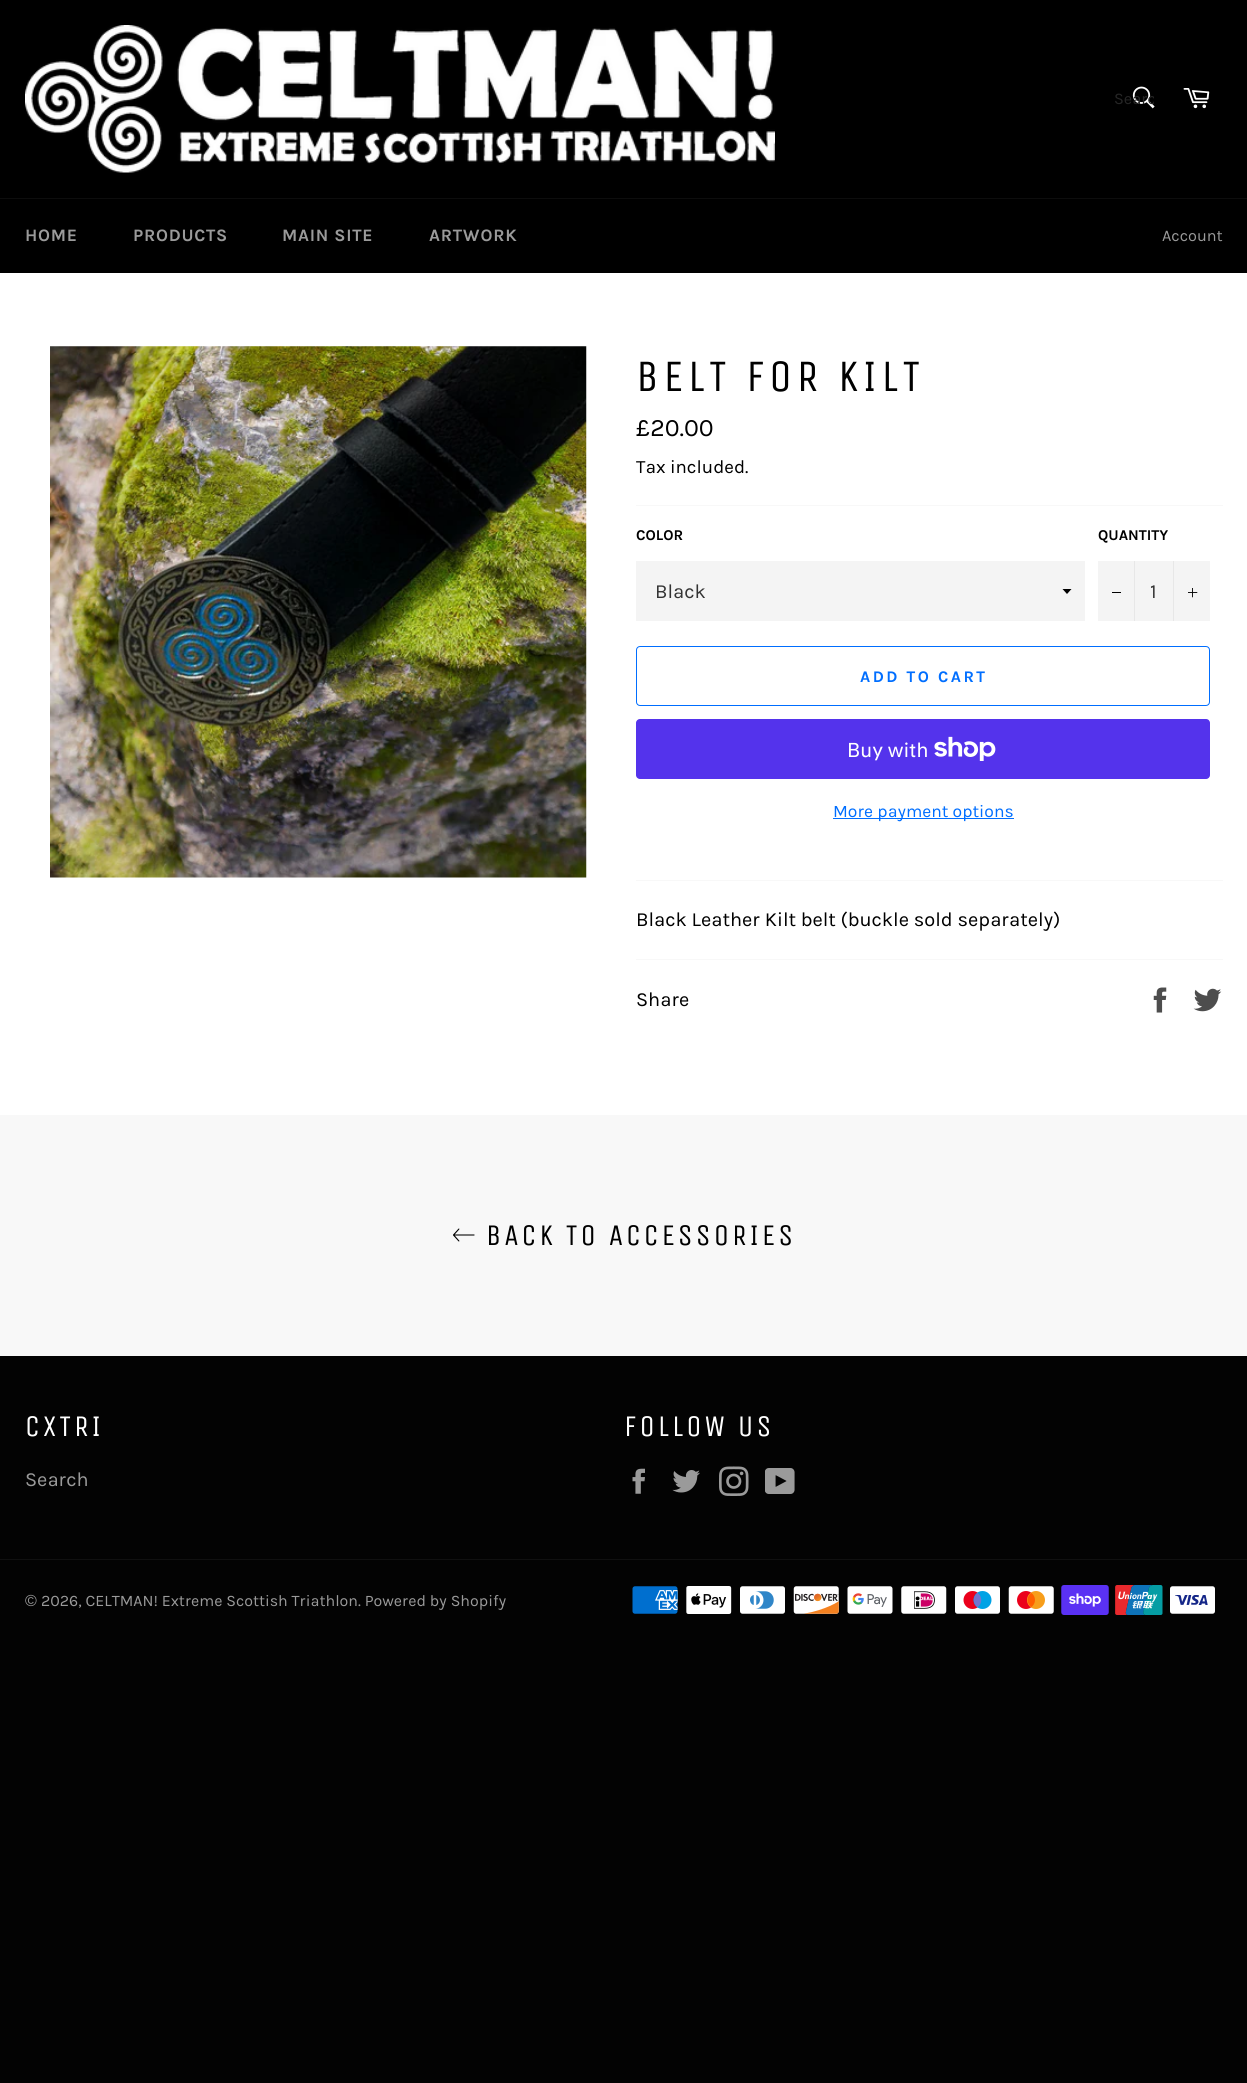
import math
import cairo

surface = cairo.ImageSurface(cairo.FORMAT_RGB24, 1247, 2083)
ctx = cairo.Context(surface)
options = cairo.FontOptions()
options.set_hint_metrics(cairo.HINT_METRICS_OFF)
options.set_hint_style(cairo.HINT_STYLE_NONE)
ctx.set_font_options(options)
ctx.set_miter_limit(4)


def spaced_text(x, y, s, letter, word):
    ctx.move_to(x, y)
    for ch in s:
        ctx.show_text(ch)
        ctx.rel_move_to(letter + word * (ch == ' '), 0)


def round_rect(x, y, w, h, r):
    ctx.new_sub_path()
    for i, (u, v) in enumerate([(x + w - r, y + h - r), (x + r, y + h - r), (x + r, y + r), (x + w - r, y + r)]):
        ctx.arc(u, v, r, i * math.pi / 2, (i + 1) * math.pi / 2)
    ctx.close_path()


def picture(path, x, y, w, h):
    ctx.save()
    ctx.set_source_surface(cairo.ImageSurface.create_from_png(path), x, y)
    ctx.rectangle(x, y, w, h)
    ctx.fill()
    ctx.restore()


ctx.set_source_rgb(0.012, 0.012, 0.012)
ctx.paint()
ctx.set_source_rgb(0, 0, 0)
ctx.rectangle(0, 0, 1247, 198)
ctx.fill()
picture("img1.png", 25, 25, 750, 148)
picture("img2.png", 1132, 86, 23, 23)
ctx.save()
ctx.rectangle(1114, 90, 40, 19)
ctx.clip()
ctx.select_font_face("Karla")
ctx.set_font_size(16.25)
ctx.set_source_rgb(0.149, 0.149, 0.149)
ctx.move_to(1114, 104)
ctx.show_text("Searc")
ctx.restore()
picture("img3.png", 1183, 88, 27, 21)
ctx.rectangle(0, 199, 1247, 74)
ctx.fill()
ctx.set_source_rgb(0.051, 0.051, 0.051)
ctx.rectangle(0, 198, 1247, 1)
ctx.fill()
ctx.select_font_face("Karla", cairo.FONT_SLANT_NORMAL, cairo.FONT_WEIGHT_BOLD)
ctx.set_font_size(17.5)
ctx.set_source_rgb(0.604, 0.604, 0.604)
spaced_text(25, 241, "HOME", 0.75, 0)
spaced_text(133, 241, "PRODUCTS", 0.75, 0)
spaced_text(282, 241, "MAIN SITE", 0.75, 0)
spaced_text(429, 241, "ARTWORK", 0.75, 0)
ctx.select_font_face("Karla")
ctx.set_font_size(16.25)
ctx.move_to(1162, 241)
ctx.show_text("Account")
ctx.set_source_rgb(1, 1, 1)
ctx.rectangle(0, 273, 1247, 842)
ctx.fill()
picture("img4.png", 50, 346, 537, 532)
ctx.select_font_face("Unica One")
ctx.set_font_size(45)
ctx.set_source_rgb(0, 0, 0)
spaced_text(636, 391, "BELT FOR KILT", 4.5, 0)
ctx.select_font_face("Karla")
ctx.set_font_size(25)
ctx.move_to(636, 436)
ctx.show_text("£20.00")
ctx.set_font_size(18.75)
ctx.move_to(636, 473)
ctx.show_text("Tax included.")
ctx.set_source_rgb(0.969, 0.969, 0.969)
ctx.rectangle(636, 505, 587, 1)
ctx.fill()
ctx.select_font_face("Karla", cairo.FONT_SLANT_NORMAL, cairo.FONT_WEIGHT_BOLD)
ctx.set_font_size(15)
ctx.set_source_rgb(0, 0, 0)
ctx.move_to(636, 540)
ctx.show_text("COLOR")
ctx.set_source_rgb(0.957, 0.957, 0.957)
ctx.rectangle(636, 561, 449, 60)
ctx.fill()
ctx.set_source_rgb(0, 0, 0)
ctx.new_path()
ctx.move_to(1062.5, 589)
ctx.line_to(1067, 594)
ctx.line_to(1071.5, 589)
ctx.close_path()
ctx.fill()
ctx.select_font_face("Karla")
ctx.set_font_size(20)
ctx.set_source_rgb(0.2, 0.2, 0.2)
ctx.move_to(655, 598)
ctx.show_text("Black")
ctx.select_font_face("Karla", cairo.FONT_SLANT_NORMAL, cairo.FONT_WEIGHT_BOLD)
ctx.set_font_size(15)
ctx.set_source_rgb(0, 0, 0)
ctx.move_to(1098, 540)
ctx.show_text("QUANTITY")
ctx.set_source_rgb(0.957, 0.957, 0.957)
ctx.rectangle(1098, 561, 112, 60)
ctx.fill()
ctx.set_source_rgb(0.906, 0.906, 0.906)
ctx.rectangle(1134, 561, 1, 60)
ctx.fill()
ctx.set_source_rgb(0, 0, 0)
ctx.rectangle(1112, 592, 9, 1)
ctx.fill()
ctx.select_font_face("Karla")
ctx.set_font_size(20)
ctx.set_source_rgb(0.2, 0.2, 0.2)
ctx.move_to(1150, 598)
ctx.show_text("1")
ctx.set_source_rgb(0.906, 0.906, 0.906)
ctx.rectangle(1173, 561, 1, 60)
ctx.fill()
picture("img5.png", 1188, 588, 10, 10)
round_rect(636.5, 646.5, 573, 59, 3.5)
ctx.set_source_rgb(0, 0.431, 1)
ctx.set_line_width(1)
ctx.stroke()
ctx.select_font_face("Karla", cairo.FONT_SLANT_NORMAL, cairo.FONT_WEIGHT_BOLD)
ctx.set_font_size(16.25)
spaced_text(860, 682, "ADD TO CART", 2.5, 0)
ctx.set_source_rgb(0.329, 0.2, 0.922)
round_rect(636, 719, 574, 60, 4)
ctx.fill()
ctx.select_font_face("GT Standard")
ctx.set_font_size(20)
ctx.set_source_rgb(1, 1, 1)
ctx.move_to(847, 757)
ctx.show_text("Buy with")
picture("img6.png", 934, 736, 62, 25)
ctx.set_source_rgb(0, 0.431, 1)
ctx.rectangle(833, 818, 181, 1)
ctx.fill()
ctx.select_font_face("Karla")
ctx.set_font_size(17.5)
ctx.move_to(833, 817)
ctx.show_text("More payment options")
ctx.set_source_rgb(0.969, 0.969, 0.969)
ctx.rectangle(636, 880, 587, 1)
ctx.fill()
ctx.set_font_size(20)
ctx.set_source_rgb(0, 0, 0)
ctx.move_to(636, 926)
ctx.show_text("Black Leather Kilt belt (buckle sold separately)")
ctx.set_source_rgb(0.969, 0.969, 0.969)
ctx.rectangle(636, 959, 587, 1)
ctx.fill()
ctx.set_source_rgb(0, 0, 0)
ctx.move_to(636, 1006)
ctx.show_text("Share")
picture("img7.png", 1153, 987, 14, 26)
picture("img8.png", 1193, 988, 29, 24)
ctx.set_source_rgb(0.969, 0.969, 0.969)
ctx.rectangle(0, 1115, 1247, 241)
ctx.fill()
picture("img9.png", 453, 1228, 22, 14)
ctx.select_font_face("Unica One")
ctx.set_font_size(30)
ctx.set_source_rgb(0, 0, 0)
spaced_text(486, 1245, "BACK TO ACCESSORIES", 3, 0)
ctx.set_source_rgb(1, 1, 1)
spaced_text(25, 1436, "CXTRI", 3, 0)
ctx.select_font_face("Karla")
ctx.set_font_size(20)
ctx.set_source_rgb(0.604, 0.604, 0.604)
ctx.move_to(25, 1486)
ctx.show_text("Search")
ctx.select_font_face("Unica One")
ctx.set_font_size(30)
ctx.set_source_rgb(1, 1, 1)
spaced_text(624, 1436, "FOLLOW US", 3, 0)
picture("img10.png", 632, 1468, 13, 26)
picture("img11.png", 672, 1470, 28, 23)
picture("img12.png", 719, 1466, 30, 30)
picture("img13.png", 765, 1468, 30, 26)
ctx.set_source_rgb(0.063, 0.063, 0.063)
ctx.rectangle(0, 1559, 1247, 1)
ctx.fill()
ctx.select_font_face("Liberation Sans")
ctx.set_font_size(16)
ctx.set_source_rgb(0.604, 0.604, 0.604)
ctx.move_to(25, 1606)
ctx.show_text("©")
ctx.select_font_face("Karla")
ctx.move_to(41, 1606)
ctx.show_text("2026, CELTMAN! Extreme Scottish Triathlon. Powered by Shopify")
picture("img14.png", 632, 1586, 46, 28)
picture("img15.png", 686, 1586, 46, 28)
picture("img16.png", 740, 1586, 45, 28)
picture("img17.png", 793, 1586, 46, 28)
picture("img18.png", 847, 1586, 46, 28)
picture("img19.png", 901, 1586, 46, 28)
picture("img20.png", 955, 1586, 45, 28)
picture("img21.png", 1008, 1586, 46, 28)
picture("img22.png", 1061, 1585, 48, 30)
picture("img23.png", 1115, 1585, 48, 30)
picture("img24.png", 1170, 1586, 45, 28)
surface.write_to_png("page.png")
